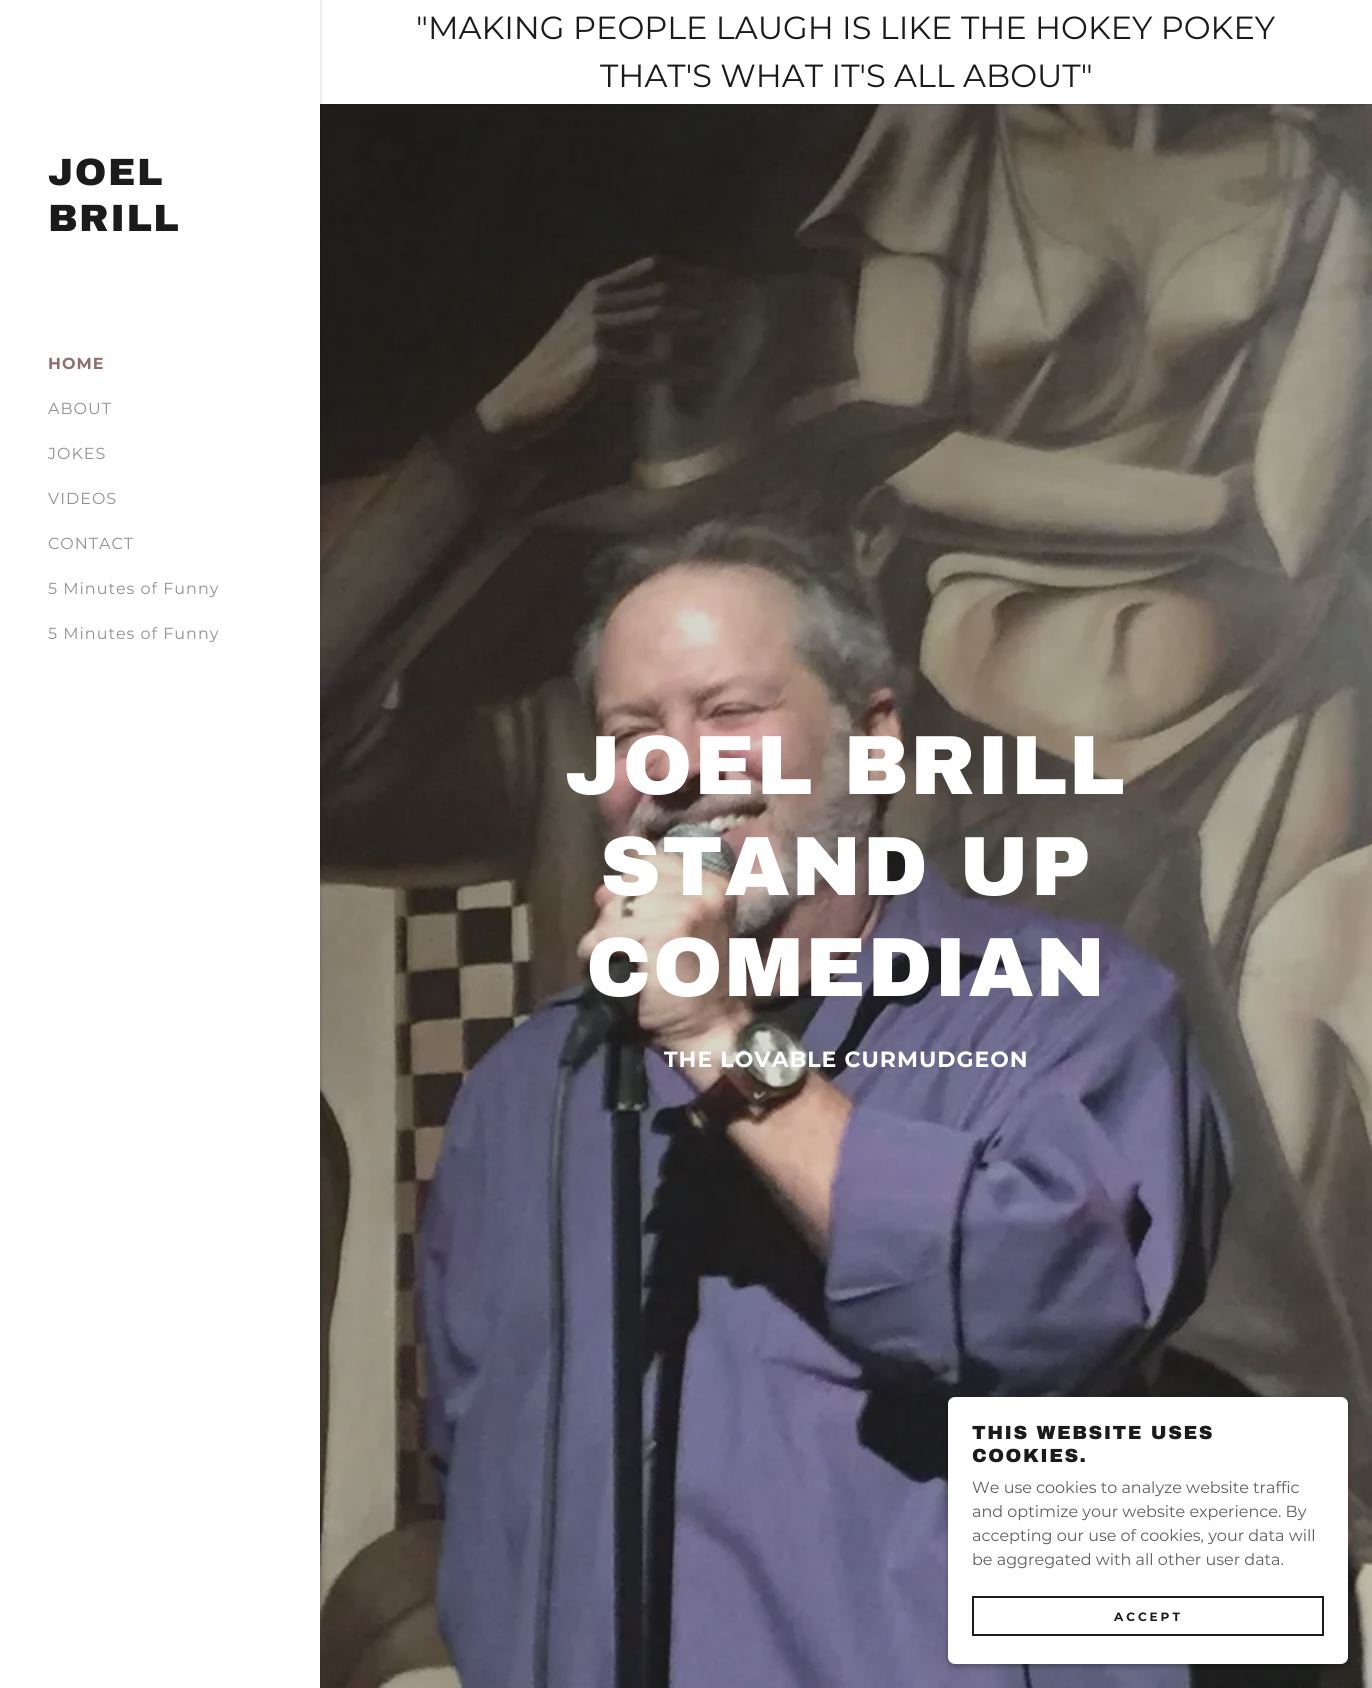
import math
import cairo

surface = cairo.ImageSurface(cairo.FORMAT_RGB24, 1372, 1688)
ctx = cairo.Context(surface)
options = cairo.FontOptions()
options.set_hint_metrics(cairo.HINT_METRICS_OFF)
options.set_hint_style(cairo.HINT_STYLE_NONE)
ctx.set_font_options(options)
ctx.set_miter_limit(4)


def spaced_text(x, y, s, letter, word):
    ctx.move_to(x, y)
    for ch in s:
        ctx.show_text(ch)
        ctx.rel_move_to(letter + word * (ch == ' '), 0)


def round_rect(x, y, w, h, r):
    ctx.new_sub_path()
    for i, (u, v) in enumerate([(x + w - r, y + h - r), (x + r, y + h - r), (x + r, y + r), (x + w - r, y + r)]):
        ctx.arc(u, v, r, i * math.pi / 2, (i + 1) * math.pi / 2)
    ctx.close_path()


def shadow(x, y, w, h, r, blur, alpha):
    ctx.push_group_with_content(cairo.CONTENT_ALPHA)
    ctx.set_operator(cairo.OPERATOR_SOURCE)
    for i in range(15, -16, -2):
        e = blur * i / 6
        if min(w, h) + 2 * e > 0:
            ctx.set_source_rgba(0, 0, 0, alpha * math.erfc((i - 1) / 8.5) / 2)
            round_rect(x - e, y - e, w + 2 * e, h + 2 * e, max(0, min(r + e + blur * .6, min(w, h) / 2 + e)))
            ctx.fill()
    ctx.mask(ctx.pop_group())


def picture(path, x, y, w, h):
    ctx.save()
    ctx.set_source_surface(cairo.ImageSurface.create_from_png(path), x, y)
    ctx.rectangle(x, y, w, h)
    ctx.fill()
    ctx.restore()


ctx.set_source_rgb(1, 1, 1)
ctx.paint()
picture("img1.png", 320, 104, 1052, 1584)
ctx.save()
ctx.rectangle(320, 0, 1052, 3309)
ctx.clip()
ctx.set_source_rgb(0, 0, 0)
shadow(320, 0, 1052, 104, 0, 2, 0.2)
ctx.restore()
ctx.set_source_rgb(1, 1, 1)
ctx.rectangle(320, 0, 1052, 104)
ctx.fill()
ctx.select_font_face("Montserrat")
ctx.set_font_size(32)
ctx.set_source_rgb(0.106, 0.106, 0.106)
ctx.move_to(416, 39)
ctx.show_text("\"MAKING PEOPLE LAUGH IS LIKE THE HOKEY POKEY")
ctx.move_to(600, 87)
ctx.show_text("THAT'S WHAT IT'S ALL ABOUT\"")
ctx.save()
ctx.rectangle(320, 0, 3, 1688)
ctx.clip()
ctx.set_source_rgb(0, 0, 0)
shadow(0, 0, 320, 1688, 0, 2, 0.2)
ctx.restore()
ctx.select_font_face("Archivo Black Black")
ctx.set_font_size(38)
spaced_text(48, 185, "JOEL", 1.5, 0)
spaced_text(48, 231, "BRILL", 1.5, 0)
ctx.select_font_face("Montserrat", cairo.FONT_SLANT_NORMAL, cairo.FONT_WEIGHT_BOLD)
ctx.set_font_size(16)
ctx.set_source_rgb(0.561, 0.431, 0.431)
spaced_text(48, 369, "HOME", 1, 0)
ctx.select_font_face("Montserrat")
ctx.set_source_rgb(0.569, 0.569, 0.569)
spaced_text(48, 414, "ABOUT", 1, 0)
spaced_text(48, 459, "JOKES", 1, 0)
spaced_text(48, 504, "VIDEOS", 1, 0)
spaced_text(48, 549, "CONTACT", 1, 0)
spaced_text(48, 594, "5 Minutes of Funny", 1, 0)
spaced_text(48, 639, "5 Minutes of Funny", 1, 0)
ctx.select_font_face("Archivo Black Black")
ctx.set_font_size(84)
ctx.set_source_rgb(1, 1, 1)
spaced_text(565, 794, "JOEL BRILL", 1.5, 0)
spaced_text(600, 895, "STAND UP", 1.5, 0)
spaced_text(586, 996, "COMEDIAN", 1.5, 0)
ctx.select_font_face("Montserrat", cairo.FONT_SLANT_NORMAL, cairo.FONT_WEIGHT_BOLD)
ctx.set_font_size(22)
spaced_text(664, 1067, "THE LOVABLE CURMUDGEON", 1, 0)
ctx.set_source_rgb(0, 0, 0)
shadow(948, 1399, 400, 267, 7, 3, 0.3)
ctx.set_source_rgb(1, 1, 1)
round_rect(948, 1397, 400, 267, 7)
ctx.fill()
ctx.select_font_face("Archivo Black Black")
ctx.set_font_size(19)
ctx.set_source_rgb(0.106, 0.106, 0.106)
spaced_text(972, 1439, "THIS WEBSITE USES", 1.5, 0)
spaced_text(972, 1462, "COOKIES.", 1.5, 0)
ctx.select_font_face("Montserrat")
ctx.set_font_size(16)
ctx.set_source_rgb(0.369, 0.369, 0.369)
ctx.move_to(972, 1493)
ctx.show_text("We use cookies to analyze website traffic")
ctx.move_to(972, 1517)
ctx.show_text("and optimize your website experience. By")
ctx.move_to(972, 1541)
ctx.show_text("accepting our use of cookies, your data will")
ctx.move_to(972, 1565)
ctx.show_text("be aggregated with all other user data.")
ctx.rectangle(973, 1597, 350, 38)
ctx.set_source_rgb(0.106, 0.106, 0.106)
ctx.stroke()
ctx.select_font_face("Montserrat", cairo.FONT_SLANT_NORMAL, cairo.FONT_WEIGHT_BOLD)
ctx.set_font_size(12)
spaced_text(1114, 1621, "ACCEPT", 3, 0)
surface.write_to_png("page.png")
